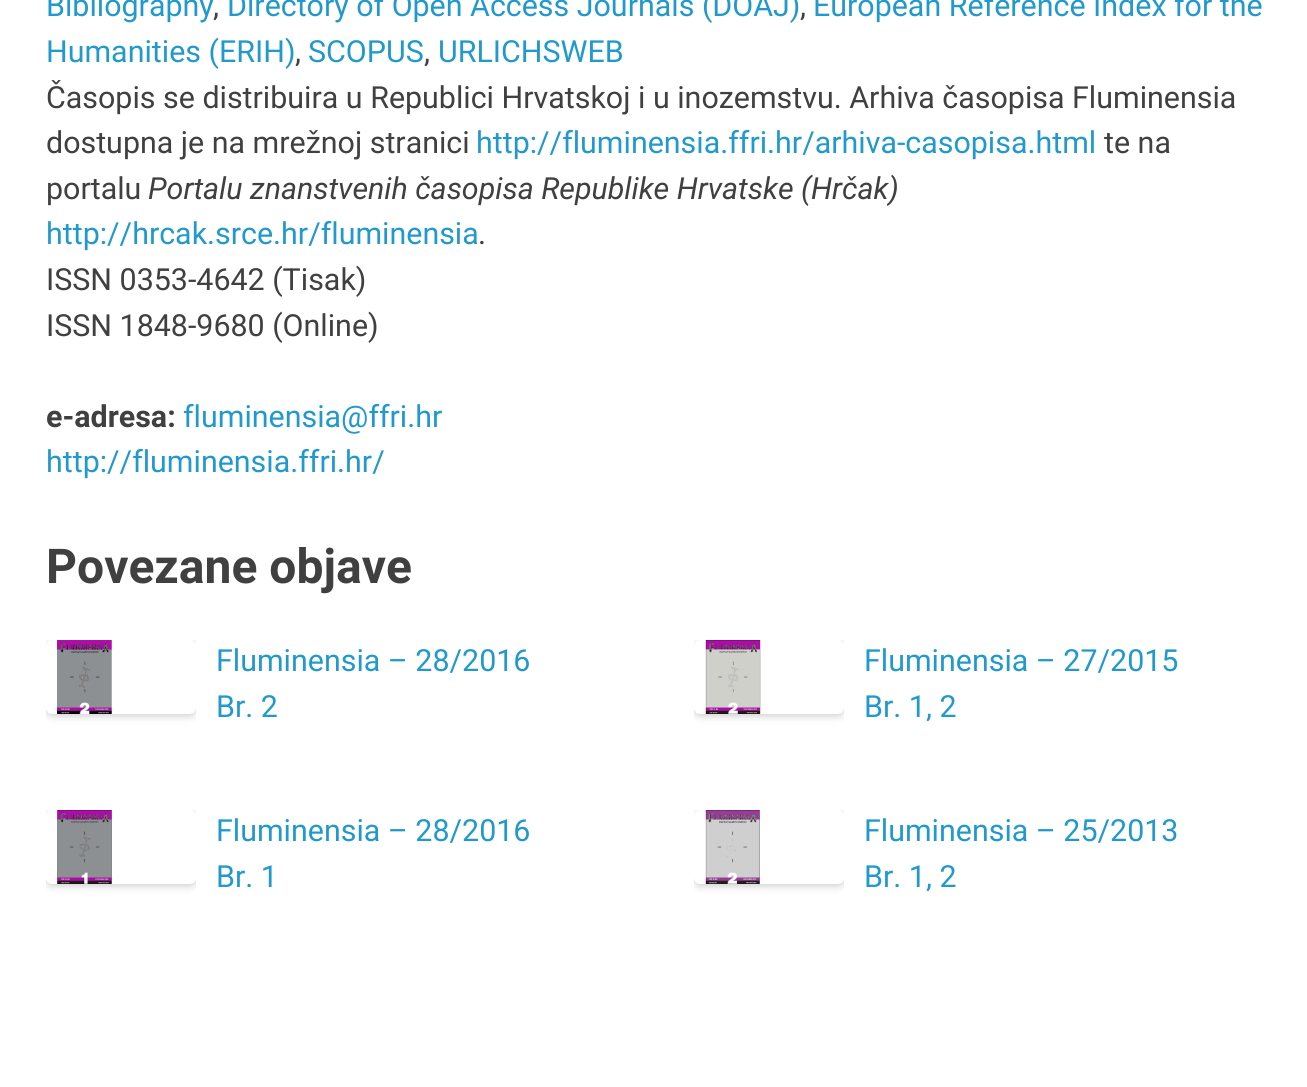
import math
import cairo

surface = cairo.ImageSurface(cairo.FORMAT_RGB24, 1307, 1087)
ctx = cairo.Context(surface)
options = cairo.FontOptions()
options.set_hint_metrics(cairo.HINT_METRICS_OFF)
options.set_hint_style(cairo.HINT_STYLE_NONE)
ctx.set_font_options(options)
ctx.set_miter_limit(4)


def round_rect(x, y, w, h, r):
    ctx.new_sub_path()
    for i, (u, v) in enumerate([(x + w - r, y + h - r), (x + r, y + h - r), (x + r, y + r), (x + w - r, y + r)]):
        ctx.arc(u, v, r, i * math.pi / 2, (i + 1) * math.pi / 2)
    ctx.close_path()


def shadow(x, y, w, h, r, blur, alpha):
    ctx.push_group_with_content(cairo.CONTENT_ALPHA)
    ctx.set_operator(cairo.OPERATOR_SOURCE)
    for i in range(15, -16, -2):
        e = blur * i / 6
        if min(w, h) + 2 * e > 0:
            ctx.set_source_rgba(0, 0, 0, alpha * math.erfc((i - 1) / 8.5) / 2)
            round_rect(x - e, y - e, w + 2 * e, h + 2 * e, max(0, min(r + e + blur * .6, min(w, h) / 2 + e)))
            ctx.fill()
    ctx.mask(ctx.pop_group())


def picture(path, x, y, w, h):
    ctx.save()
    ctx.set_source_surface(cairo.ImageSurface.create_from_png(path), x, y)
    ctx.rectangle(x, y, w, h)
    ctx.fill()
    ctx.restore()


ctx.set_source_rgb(1, 1, 1)
ctx.paint()
ctx.select_font_face("Roboto")
ctx.set_font_size(30.4)
ctx.set_source_rgb(0.133, 0.6, 0.8)
ctx.move_to(46, 16)
ctx.show_text("Bibliography")
ctx.set_source_rgb(0.251, 0.251, 0.251)
ctx.move_to(213, 16)
ctx.show_text(",")
ctx.set_source_rgb(0.133, 0.6, 0.8)
ctx.move_to(227, 16)
ctx.show_text("Directory of Open Access Journals (DOAJ)")
ctx.set_source_rgb(0.251, 0.251, 0.251)
ctx.move_to(800, 16)
ctx.show_text(",")
ctx.set_source_rgb(0.133, 0.6, 0.8)
ctx.move_to(813, 16)
ctx.show_text("European Reference Index for the")
ctx.move_to(46, 62)
ctx.show_text("Humanities (ERIH)")
ctx.set_source_rgb(0.251, 0.251, 0.251)
ctx.move_to(295, 62)
ctx.show_text(",")
ctx.set_source_rgb(0.133, 0.6, 0.8)
ctx.move_to(308, 62)
ctx.show_text("SCOPUS")
ctx.set_source_rgb(0.251, 0.251, 0.251)
ctx.move_to(424, 62)
ctx.show_text(",")
ctx.set_source_rgb(0.133, 0.6, 0.8)
ctx.move_to(438, 62)
ctx.show_text("URLICHSWEB")
ctx.set_source_rgb(0.251, 0.251, 0.251)
ctx.move_to(46, 108)
ctx.show_text("Časopis se distribuira u Republici Hrvatskoj i u inozemstvu. Arhiva časopisa Fluminensia")
ctx.move_to(46, 153)
ctx.show_text("dostupna je na mrežnoj stranici")
ctx.set_source_rgb(0.133, 0.6, 0.8)
ctx.move_to(476, 153)
ctx.show_text("http://fluminensia.ffri.hr/arhiva-casopisa.html")
ctx.set_source_rgb(0.251, 0.251, 0.251)
ctx.move_to(1104, 153)
ctx.show_text("te na")
ctx.move_to(46, 199)
ctx.show_text("portalu")
ctx.select_font_face("Roboto", cairo.FONT_SLANT_ITALIC)
ctx.move_to(148, 199)
ctx.show_text("Portalu znanstvenih časopisa Republike Hrvatske (Hrčak)")
ctx.select_font_face("Roboto")
ctx.set_source_rgb(0.133, 0.6, 0.8)
ctx.move_to(46, 244)
ctx.show_text("http://hrcak.srce.hr/fluminensia")
ctx.set_source_rgb(0.251, 0.251, 0.251)
ctx.move_to(478, 244)
ctx.show_text(".")
ctx.move_to(46, 290)
ctx.show_text("ISSN 0353-4642 (Tisak)")
ctx.move_to(46, 336)
ctx.show_text("ISSN 1848-9680 (Online)")
ctx.select_font_face("Roboto", cairo.FONT_SLANT_NORMAL, cairo.FONT_WEIGHT_BOLD)
ctx.move_to(46, 427)
ctx.show_text("e-adresa:")
ctx.select_font_face("Roboto")
ctx.set_source_rgb(0.133, 0.6, 0.8)
ctx.move_to(183, 427)
ctx.show_text("fluminensia@ffri.hr")
ctx.move_to(46, 472)
ctx.show_text("http://fluminensia.ffri.hr/")
ctx.select_font_face("Roboto", cairo.FONT_SLANT_NORMAL, cairo.FONT_WEIGHT_BOLD)
ctx.set_font_size(48)
ctx.set_source_rgb(0.251, 0.251, 0.251)
ctx.move_to(46, 583)
ctx.show_text("Povezane objave")
ctx.save()
ctx.rectangle(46, 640, 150, 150)
ctx.clip()
ctx.set_source_rgb(0, 0, 0)
shadow(46, 642, 150, 74, 6, 4, 0.2)
ctx.restore()
picture("img1.png", 46, 640, 150, 74)
ctx.select_font_face("Roboto")
ctx.set_font_size(30.4)
ctx.set_source_rgb(0.133, 0.6, 0.8)
ctx.move_to(216, 671)
ctx.show_text("Fluminensia – 28/2016")
ctx.move_to(216, 717)
ctx.show_text("Br. 2")
ctx.save()
ctx.rectangle(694, 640, 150, 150)
ctx.clip()
ctx.set_source_rgb(0, 0, 0)
shadow(694, 642, 150, 74, 6, 4, 0.2)
ctx.restore()
picture("img2.png", 694, 640, 150, 74)
ctx.move_to(864, 671)
ctx.show_text("Fluminensia – 27/2015")
ctx.move_to(864, 717)
ctx.show_text("Br. 1, 2")
ctx.save()
ctx.rectangle(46, 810, 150, 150)
ctx.clip()
ctx.set_source_rgb(0, 0, 0)
shadow(46, 812, 150, 74, 6, 4, 0.2)
ctx.restore()
picture("img3.png", 46, 810, 150, 74)
ctx.move_to(216, 841)
ctx.show_text("Fluminensia – 28/2016")
ctx.move_to(216, 887)
ctx.show_text("Br. 1")
ctx.save()
ctx.rectangle(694, 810, 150, 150)
ctx.clip()
ctx.set_source_rgb(0, 0, 0)
shadow(694, 812, 150, 74, 6, 4, 0.2)
ctx.restore()
picture("img4.png", 694, 810, 150, 74)
ctx.move_to(864, 841)
ctx.show_text("Fluminensia – 25/2013")
ctx.move_to(864, 887)
ctx.show_text("Br. 1, 2")
surface.write_to_png("page.png")
